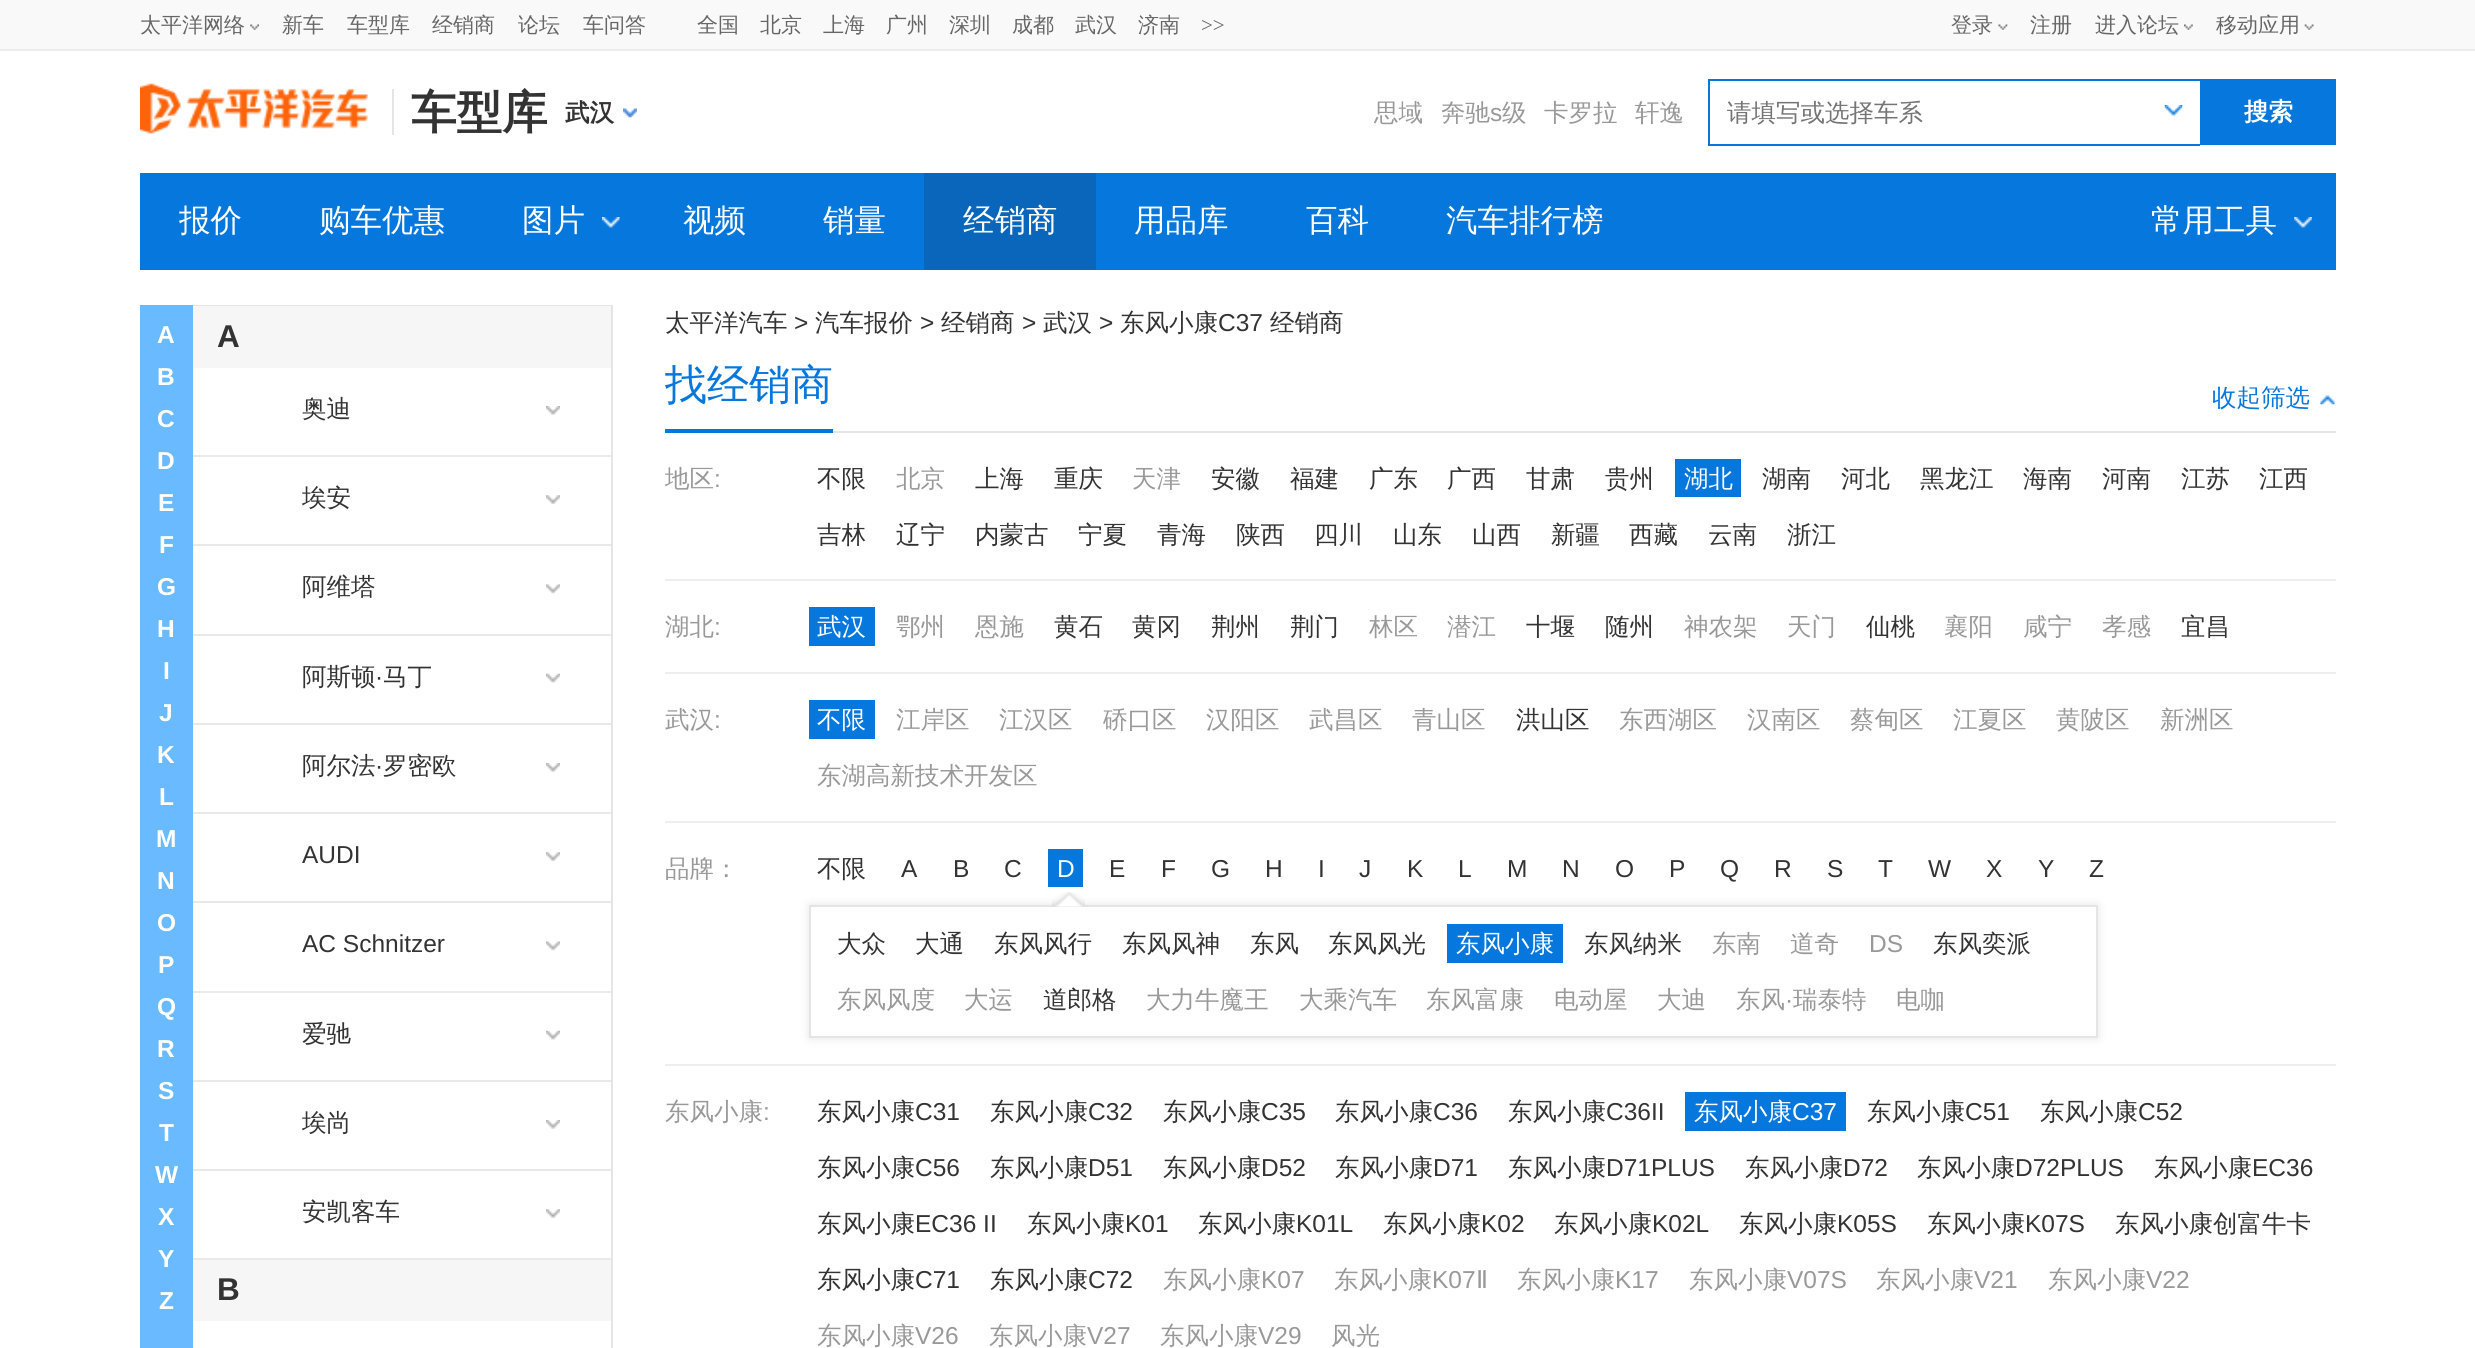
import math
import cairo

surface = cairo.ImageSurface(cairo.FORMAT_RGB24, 2475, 1348)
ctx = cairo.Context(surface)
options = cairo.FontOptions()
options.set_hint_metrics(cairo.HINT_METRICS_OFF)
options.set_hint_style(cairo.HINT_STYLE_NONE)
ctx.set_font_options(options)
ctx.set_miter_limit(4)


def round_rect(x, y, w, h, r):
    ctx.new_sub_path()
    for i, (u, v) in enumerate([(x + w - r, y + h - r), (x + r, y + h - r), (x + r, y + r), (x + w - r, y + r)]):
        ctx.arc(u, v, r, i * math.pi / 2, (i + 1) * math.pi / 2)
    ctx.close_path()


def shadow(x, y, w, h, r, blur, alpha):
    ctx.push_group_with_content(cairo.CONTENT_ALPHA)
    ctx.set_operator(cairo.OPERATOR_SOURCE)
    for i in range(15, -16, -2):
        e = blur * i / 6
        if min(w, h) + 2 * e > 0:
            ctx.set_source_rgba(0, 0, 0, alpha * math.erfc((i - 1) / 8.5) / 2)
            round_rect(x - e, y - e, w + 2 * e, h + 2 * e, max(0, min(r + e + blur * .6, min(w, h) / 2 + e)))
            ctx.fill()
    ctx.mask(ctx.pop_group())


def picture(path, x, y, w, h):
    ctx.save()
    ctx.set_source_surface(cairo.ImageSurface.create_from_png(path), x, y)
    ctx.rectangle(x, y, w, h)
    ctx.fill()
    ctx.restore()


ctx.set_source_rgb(1, 1, 1)
ctx.paint()
ctx.set_source_rgb(0.973, 0.973, 0.973)
ctx.rectangle(0, 0, 2475, 49)
ctx.fill()
ctx.set_source_rgb(0.925, 0.925, 0.925)
ctx.rectangle(0, 49, 2475, 2)
ctx.fill()
ctx.select_font_face("WenQuanYi Zen Hei Medium")
ctx.set_font_size(21)
ctx.set_source_rgb(0.4, 0.4, 0.4)
ctx.move_to(140, 32)
ctx.show_text("太平洋网络")
picture("img1.png", 250, 24, 9, 6)
ctx.move_to(282, 32)
ctx.show_text("新车")
ctx.move_to(347, 32)
ctx.show_text("车型库")
ctx.move_to(432, 32)
ctx.show_text("经销商")
ctx.move_to(518, 32)
ctx.show_text("论坛")
ctx.move_to(583, 32)
ctx.show_text("车问答")
ctx.move_to(697, 32)
ctx.show_text("全国")
ctx.move_to(760, 32)
ctx.show_text("北京")
ctx.move_to(823, 32)
ctx.show_text("上海")
ctx.move_to(886, 32)
ctx.show_text("广州")
ctx.move_to(949, 32)
ctx.show_text("深圳")
ctx.move_to(1012, 32)
ctx.show_text("成都")
ctx.move_to(1075, 32)
ctx.show_text("武汉")
ctx.move_to(1138, 32)
ctx.show_text("济南")
ctx.select_font_face("Liberation Serif")
ctx.move_to(1201, 32)
ctx.show_text(">>")
ctx.select_font_face("WenQuanYi Zen Hei Medium")
ctx.move_to(1951, 32)
ctx.show_text("登录")
picture("img2.png", 1998, 24, 10, 6)
ctx.move_to(2030, 32)
ctx.show_text("注册")
ctx.move_to(2095, 32)
ctx.show_text("进入论坛")
picture("img3.png", 2184, 24, 9, 6)
ctx.move_to(2216, 32)
ctx.show_text("移动应用")
picture("img4.png", 2304, 24, 10, 6)
picture("img5.png", 140, 83, 228, 51)
ctx.set_source_rgb(0.898, 0.898, 0.898)
ctx.rectangle(392, 89, 2, 46)
ctx.fill()
ctx.select_font_face("WenQuanYi Zen Hei", cairo.FONT_SLANT_NORMAL, cairo.FONT_WEIGHT_BOLD)
ctx.set_font_size(45.5)
ctx.set_source_rgb(0.2, 0.2, 0.2)
ctx.move_to(411, 128)
ctx.show_text("车型库")
ctx.set_font_size(24.5)
ctx.move_to(565, 121)
ctx.show_text("武汉")
picture("img6.png", 623, 108, 14, 10)
ctx.select_font_face("WenQuanYi Zen Hei Medium")
ctx.set_source_rgb(0.6, 0.6, 0.6)
ctx.move_to(1374, 121)
ctx.show_text("思域")
ctx.move_to(1441, 121)
ctx.show_text("奔驰")
ctx.select_font_face("Liberation Sans")
ctx.move_to(1490, 121)
ctx.show_text("s")
ctx.select_font_face("WenQuanYi Zen Hei Medium")
ctx.move_to(1502, 121)
ctx.show_text("级")
ctx.move_to(1544, 121)
ctx.show_text("卡罗拉")
ctx.move_to(1635, 121)
ctx.show_text("轩逸")
ctx.set_source_rgb(0.027, 0.467, 0.867)
ctx.rectangle(1708, 79, 492, 2)
ctx.fill()
ctx.rectangle(1708, 144, 492, 2)
ctx.fill()
ctx.rectangle(1708, 79, 2, 66)
ctx.fill()
ctx.set_source_rgb(0.459, 0.459, 0.459)
ctx.move_to(1727, 121)
ctx.show_text("请填写或选择车系")
picture("img7.png", 2164, 105, 19, 11)
ctx.set_source_rgb(0.027, 0.467, 0.867)
ctx.rectangle(2200, 79, 136, 66)
ctx.fill()
ctx.select_font_face("WenQuanYi Zen Hei", cairo.FONT_SLANT_NORMAL, cairo.FONT_WEIGHT_BOLD)
ctx.set_source_rgb(1, 1, 1)
ctx.move_to(2244, 120)
ctx.show_text("搜索")
ctx.set_source_rgb(0.027, 0.467, 0.867)
ctx.rectangle(140, 173, 2196, 97)
ctx.fill()
ctx.select_font_face("WenQuanYi Zen Hei Medium")
ctx.set_font_size(31.5)
ctx.set_source_rgb(1, 1, 1)
ctx.move_to(179, 231)
ctx.show_text("报价")
ctx.move_to(319, 231)
ctx.show_text("购车优惠")
ctx.move_to(522, 231)
ctx.show_text("图片")
picture("img8.png", 602, 217, 18, 11)
ctx.move_to(683, 231)
ctx.show_text("视频")
ctx.move_to(823, 231)
ctx.show_text("销量")
ctx.set_source_rgb(0.039, 0.4, 0.733)
ctx.rectangle(924, 173, 172, 97)
ctx.fill()
ctx.set_source_rgb(1, 1, 1)
ctx.move_to(963, 231)
ctx.show_text("经销商")
ctx.move_to(1134, 231)
ctx.show_text("用品库")
ctx.move_to(1306, 231)
ctx.show_text("百科")
ctx.move_to(1446, 231)
ctx.show_text("汽车排行榜")
ctx.move_to(2151, 231)
ctx.show_text("常用工具")
picture("img9.png", 2294, 217, 18, 11)
ctx.set_source_rgb(0.412, 0.729, 1)
ctx.rectangle(140, 305, 53, 1043)
ctx.fill()
ctx.select_font_face("Liberation Sans", cairo.FONT_SLANT_NORMAL, cairo.FONT_WEIGHT_BOLD)
ctx.set_font_size(24.5)
ctx.set_source_rgb(1, 1, 1)
ctx.move_to(157, 343)
ctx.show_text("A")
ctx.move_to(157, 385)
ctx.show_text("B")
ctx.move_to(157, 427)
ctx.show_text("C")
ctx.move_to(157, 469)
ctx.show_text("D")
ctx.move_to(158, 511)
ctx.show_text("E")
ctx.move_to(159, 553)
ctx.show_text("F")
ctx.move_to(157, 595)
ctx.show_text("G")
ctx.move_to(157, 637)
ctx.show_text("H")
ctx.move_to(163, 679)
ctx.show_text("I")
ctx.move_to(159, 721)
ctx.show_text("J")
ctx.move_to(157, 763)
ctx.show_text("K")
ctx.move_to(159, 805)
ctx.show_text("L")
ctx.move_to(156, 847)
ctx.show_text("M")
ctx.move_to(157, 889)
ctx.show_text("N")
ctx.move_to(157, 931)
ctx.show_text("O")
ctx.move_to(158, 973)
ctx.show_text("P")
ctx.move_to(157, 1015)
ctx.show_text("Q")
ctx.move_to(157, 1057)
ctx.show_text("R")
ctx.move_to(158, 1099)
ctx.show_text("S")
ctx.move_to(159, 1141)
ctx.show_text("T")
ctx.move_to(155, 1183)
ctx.show_text("W")
ctx.move_to(158, 1225)
ctx.show_text("X")
ctx.move_to(158, 1267)
ctx.show_text("Y")
ctx.move_to(159, 1309)
ctx.show_text("Z")
ctx.set_source_rgb(0.898, 0.898, 0.898)
ctx.rectangle(193, 305, 420, 1)
ctx.fill()
ctx.rectangle(611, 305, 2, 1043)
ctx.fill()
ctx.set_source_rgb(0.961, 0.961, 0.961)
ctx.rectangle(193, 306, 418, 62)
ctx.fill()
ctx.set_font_size(31.5)
ctx.set_source_rgb(0.2, 0.2, 0.2)
ctx.move_to(217, 347)
ctx.show_text("A")
ctx.set_source_rgb(0.914, 0.914, 0.914)
ctx.rectangle(193, 455, 418, 2)
ctx.fill()
ctx.select_font_face("WenQuanYi Zen Hei Medium")
ctx.set_font_size(24.5)
ctx.set_source_rgb(0.2, 0.2, 0.2)
ctx.move_to(302, 417)
ctx.show_text("奥迪")
picture("img10.png", 546, 406, 14, 9)
ctx.set_source_rgb(0.914, 0.914, 0.914)
ctx.rectangle(193, 544, 418, 2)
ctx.fill()
ctx.set_source_rgb(0.2, 0.2, 0.2)
ctx.move_to(302, 506)
ctx.show_text("埃安")
picture("img11.png", 546, 495, 14, 9)
ctx.set_source_rgb(0.914, 0.914, 0.914)
ctx.rectangle(193, 634, 418, 2)
ctx.fill()
ctx.set_source_rgb(0.2, 0.2, 0.2)
ctx.move_to(302, 595)
ctx.show_text("阿维塔")
picture("img12.png", 546, 584, 14, 10)
ctx.set_source_rgb(0.914, 0.914, 0.914)
ctx.rectangle(193, 723, 418, 2)
ctx.fill()
ctx.set_source_rgb(0.2, 0.2, 0.2)
ctx.move_to(302, 685)
ctx.show_text("阿斯顿")
ctx.select_font_face("Liberation Sans")
ctx.move_to(375, 685)
ctx.show_text("·")
ctx.select_font_face("WenQuanYi Zen Hei Medium")
ctx.move_to(383, 685)
ctx.show_text("马丁")
picture("img13.png", 546, 673, 14, 10)
ctx.set_source_rgb(0.914, 0.914, 0.914)
ctx.rectangle(193, 812, 418, 2)
ctx.fill()
ctx.set_source_rgb(0.2, 0.2, 0.2)
ctx.move_to(302, 774)
ctx.show_text("阿尔法")
ctx.select_font_face("Liberation Sans")
ctx.move_to(375, 774)
ctx.show_text("·")
ctx.select_font_face("WenQuanYi Zen Hei Medium")
ctx.move_to(383, 774)
ctx.show_text("罗密欧")
picture("img10.png", 546, 763, 14, 9)
ctx.set_source_rgb(0.914, 0.914, 0.914)
ctx.rectangle(193, 901, 418, 2)
ctx.fill()
ctx.select_font_face("Liberation Sans")
ctx.set_source_rgb(0.2, 0.2, 0.2)
ctx.move_to(302, 863)
ctx.show_text("AUDI")
picture("img11.png", 546, 852, 14, 9)
ctx.set_source_rgb(0.914, 0.914, 0.914)
ctx.rectangle(193, 991, 418, 2)
ctx.fill()
ctx.set_source_rgb(0.2, 0.2, 0.2)
ctx.move_to(302, 952)
ctx.show_text("AC Schnitzer")
picture("img12.png", 546, 941, 14, 10)
ctx.set_source_rgb(0.914, 0.914, 0.914)
ctx.rectangle(193, 1080, 418, 2)
ctx.fill()
ctx.select_font_face("WenQuanYi Zen Hei Medium")
ctx.set_source_rgb(0.2, 0.2, 0.2)
ctx.move_to(302, 1042)
ctx.show_text("爱驰")
picture("img13.png", 546, 1030, 14, 10)
ctx.set_source_rgb(0.914, 0.914, 0.914)
ctx.rectangle(193, 1169, 418, 2)
ctx.fill()
ctx.set_source_rgb(0.2, 0.2, 0.2)
ctx.move_to(302, 1131)
ctx.show_text("埃尚")
picture("img10.png", 546, 1120, 14, 9)
ctx.set_source_rgb(0.914, 0.914, 0.914)
ctx.rectangle(193, 1258, 418, 2)
ctx.fill()
ctx.set_source_rgb(0.2, 0.2, 0.2)
ctx.move_to(302, 1220)
ctx.show_text("安凯客车")
picture("img11.png", 546, 1209, 14, 9)
ctx.set_source_rgb(0.961, 0.961, 0.961)
ctx.rectangle(193, 1260, 418, 61)
ctx.fill()
ctx.select_font_face("Liberation Sans", cairo.FONT_SLANT_NORMAL, cairo.FONT_WEIGHT_BOLD)
ctx.set_font_size(31.5)
ctx.set_source_rgb(0.2, 0.2, 0.2)
ctx.move_to(217, 1300)
ctx.show_text("B")
ctx.select_font_face("WenQuanYi Zen Hei Medium")
ctx.set_font_size(24.5)
ctx.move_to(665, 331)
ctx.show_text("太平洋汽车")
ctx.select_font_face("Liberation Sans")
ctx.move_to(794, 331)
ctx.show_text(">")
ctx.select_font_face("WenQuanYi Zen Hei Medium")
ctx.move_to(815, 331)
ctx.show_text("汽车报价")
ctx.select_font_face("Liberation Sans")
ctx.move_to(920, 331)
ctx.show_text(">")
ctx.select_font_face("WenQuanYi Zen Hei Medium")
ctx.move_to(941, 331)
ctx.show_text("经销商")
ctx.select_font_face("Liberation Sans")
ctx.move_to(1022, 331)
ctx.show_text(">")
ctx.select_font_face("WenQuanYi Zen Hei Medium")
ctx.move_to(1043, 331)
ctx.show_text("武汉")
ctx.select_font_face("Liberation Sans")
ctx.move_to(1099, 331)
ctx.show_text(">")
ctx.select_font_face("WenQuanYi Zen Hei Medium")
ctx.move_to(1120, 331)
ctx.show_text("东风小康")
ctx.select_font_face("Liberation Sans")
ctx.move_to(1218, 331)
ctx.show_text("C37")
ctx.select_font_face("WenQuanYi Zen Hei Medium")
ctx.move_to(1270, 331)
ctx.show_text("经销商")
ctx.set_source_rgb(0.898, 0.898, 0.898)
ctx.rectangle(833, 431, 1503, 2)
ctx.fill()
ctx.set_source_rgb(0.027, 0.467, 0.867)
ctx.rectangle(665, 429, 168, 4)
ctx.fill()
ctx.set_font_size(42)
ctx.move_to(665, 399)
ctx.show_text("找经销商")
ctx.set_font_size(24.5)
ctx.move_to(2212, 406)
ctx.show_text("收起筛选")
picture("img14.png", 2320, 395, 15, 10)
ctx.set_source_rgb(0.933, 0.933, 0.933)
ctx.rectangle(665, 579, 1671, 2)
ctx.fill()
ctx.set_source_rgb(0.6, 0.6, 0.6)
ctx.move_to(665, 487)
ctx.show_text("地区")
ctx.select_font_face("Liberation Sans")
ctx.move_to(714, 487)
ctx.show_text(":")
ctx.select_font_face("WenQuanYi Zen Hei Medium")
ctx.set_source_rgb(0.2, 0.2, 0.2)
ctx.move_to(817, 487)
ctx.show_text("不限")
ctx.set_source_rgb(0.6, 0.6, 0.6)
ctx.move_to(896, 487)
ctx.show_text("北京")
ctx.set_source_rgb(0.2, 0.2, 0.2)
ctx.move_to(975, 487)
ctx.show_text("上海")
ctx.move_to(1054, 487)
ctx.show_text("重庆")
ctx.set_source_rgb(0.6, 0.6, 0.6)
ctx.move_to(1132, 487)
ctx.show_text("天津")
ctx.set_source_rgb(0.2, 0.2, 0.2)
ctx.move_to(1211, 487)
ctx.show_text("安徽")
ctx.move_to(1290, 487)
ctx.show_text("福建")
ctx.move_to(1369, 487)
ctx.show_text("广东")
ctx.move_to(1447, 487)
ctx.show_text("广西")
ctx.move_to(1526, 487)
ctx.show_text("甘肃")
ctx.move_to(1605, 487)
ctx.show_text("贵州")
ctx.set_source_rgb(0.027, 0.467, 0.867)
ctx.rectangle(1675, 459, 66, 38)
ctx.fill()
ctx.set_source_rgb(1, 1, 1)
ctx.move_to(1684, 487)
ctx.show_text("湖北")
ctx.set_source_rgb(0.2, 0.2, 0.2)
ctx.move_to(1762, 487)
ctx.show_text("湖南")
ctx.move_to(1841, 487)
ctx.show_text("河北")
ctx.move_to(1920, 487)
ctx.show_text("黑龙江")
ctx.move_to(2023, 487)
ctx.show_text("海南")
ctx.move_to(2102, 487)
ctx.show_text("河南")
ctx.move_to(2181, 487)
ctx.show_text("江苏")
ctx.move_to(2259, 487)
ctx.show_text("江西")
ctx.move_to(817, 543)
ctx.show_text("吉林")
ctx.move_to(896, 543)
ctx.show_text("辽宁")
ctx.move_to(975, 543)
ctx.show_text("内蒙古")
ctx.move_to(1078, 543)
ctx.show_text("宁夏")
ctx.move_to(1157, 543)
ctx.show_text("青海")
ctx.move_to(1236, 543)
ctx.show_text("陕西")
ctx.move_to(1314, 543)
ctx.show_text("四川")
ctx.move_to(1393, 543)
ctx.show_text("山东")
ctx.move_to(1472, 543)
ctx.show_text("山西")
ctx.move_to(1551, 543)
ctx.show_text("新疆")
ctx.move_to(1629, 543)
ctx.show_text("西藏")
ctx.move_to(1708, 543)
ctx.show_text("云南")
ctx.move_to(1787, 543)
ctx.show_text("浙江")
ctx.set_source_rgb(0.933, 0.933, 0.933)
ctx.rectangle(665, 672, 1671, 2)
ctx.fill()
ctx.set_source_rgb(0.6, 0.6, 0.6)
ctx.move_to(665, 635)
ctx.show_text("湖北")
ctx.select_font_face("Liberation Sans")
ctx.move_to(714, 635)
ctx.show_text(":")
ctx.set_source_rgb(0.027, 0.467, 0.867)
ctx.rectangle(809, 607, 66, 39)
ctx.fill()
ctx.select_font_face("WenQuanYi Zen Hei Medium")
ctx.set_source_rgb(1, 1, 1)
ctx.move_to(817, 635)
ctx.show_text("武汉")
ctx.set_source_rgb(0.6, 0.6, 0.6)
ctx.move_to(896, 635)
ctx.show_text("鄂州")
ctx.move_to(975, 635)
ctx.show_text("恩施")
ctx.set_source_rgb(0.2, 0.2, 0.2)
ctx.move_to(1054, 635)
ctx.show_text("黄石")
ctx.move_to(1132, 635)
ctx.show_text("黄冈")
ctx.move_to(1211, 635)
ctx.show_text("荆州")
ctx.move_to(1290, 635)
ctx.show_text("荆门")
ctx.set_source_rgb(0.6, 0.6, 0.6)
ctx.move_to(1369, 635)
ctx.show_text("林区")
ctx.move_to(1447, 635)
ctx.show_text("潜江")
ctx.set_source_rgb(0.2, 0.2, 0.2)
ctx.move_to(1526, 635)
ctx.show_text("十堰")
ctx.move_to(1605, 635)
ctx.show_text("随州")
ctx.set_source_rgb(0.6, 0.6, 0.6)
ctx.move_to(1684, 635)
ctx.show_text("神农架")
ctx.move_to(1787, 635)
ctx.show_text("天门")
ctx.set_source_rgb(0.2, 0.2, 0.2)
ctx.move_to(1866, 635)
ctx.show_text("仙桃")
ctx.set_source_rgb(0.6, 0.6, 0.6)
ctx.move_to(1944, 635)
ctx.show_text("襄阳")
ctx.move_to(2023, 635)
ctx.show_text("咸宁")
ctx.move_to(2102, 635)
ctx.show_text("孝感")
ctx.set_source_rgb(0.2, 0.2, 0.2)
ctx.move_to(2181, 635)
ctx.show_text("宜昌")
ctx.set_source_rgb(0.933, 0.933, 0.933)
ctx.rectangle(665, 821, 1671, 2)
ctx.fill()
ctx.set_source_rgb(0.6, 0.6, 0.6)
ctx.move_to(665, 728)
ctx.show_text("武汉")
ctx.select_font_face("Liberation Sans")
ctx.move_to(714, 728)
ctx.show_text(":")
ctx.set_source_rgb(0.027, 0.467, 0.867)
ctx.rectangle(809, 700, 66, 39)
ctx.fill()
ctx.select_font_face("WenQuanYi Zen Hei Medium")
ctx.set_source_rgb(1, 1, 1)
ctx.move_to(817, 728)
ctx.show_text("不限")
ctx.set_source_rgb(0.6, 0.6, 0.6)
ctx.move_to(896, 728)
ctx.show_text("江岸区")
ctx.move_to(999, 728)
ctx.show_text("江汉区")
ctx.move_to(1103, 728)
ctx.show_text("硚口区")
ctx.move_to(1206, 728)
ctx.show_text("汉阳区")
ctx.move_to(1309, 728)
ctx.show_text("武昌区")
ctx.move_to(1412, 728)
ctx.show_text("青山区")
ctx.set_source_rgb(0.2, 0.2, 0.2)
ctx.move_to(1516, 728)
ctx.show_text("洪山区")
ctx.set_source_rgb(0.6, 0.6, 0.6)
ctx.move_to(1619, 728)
ctx.show_text("东西湖区")
ctx.move_to(1747, 728)
ctx.show_text("汉南区")
ctx.move_to(1850, 728)
ctx.show_text("蔡甸区")
ctx.move_to(1953, 728)
ctx.show_text("江夏区")
ctx.move_to(2056, 728)
ctx.show_text("黄陂区")
ctx.move_to(2160, 728)
ctx.show_text("新洲区")
ctx.move_to(817, 784)
ctx.show_text("东湖高新技术开发区")
ctx.set_source_rgb(0.933, 0.933, 0.933)
ctx.rectangle(665, 1064, 1671, 2)
ctx.fill()
ctx.set_source_rgb(0.6, 0.6, 0.6)
ctx.move_to(665, 877)
ctx.show_text("品牌：")
ctx.set_source_rgb(0.2, 0.2, 0.2)
ctx.move_to(817, 877)
ctx.show_text("不限")
ctx.select_font_face("Liberation Sans")
ctx.move_to(901, 877)
ctx.show_text("A")
ctx.move_to(953, 877)
ctx.show_text("B")
ctx.move_to(1004, 877)
ctx.show_text("C")
ctx.set_source_rgb(0.027, 0.467, 0.867)
ctx.rectangle(1048, 849, 35, 38)
ctx.fill()
ctx.set_source_rgb(1, 1, 1)
ctx.move_to(1057, 877)
ctx.show_text("D")
ctx.save()
ctx.set_fill_rule(cairo.FILL_RULE_EVEN_ODD)
ctx.new_path()
ctx.move_to(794, 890)
ctx.line_to(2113, 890)
ctx.line_to(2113, 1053)
ctx.line_to(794, 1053)
ctx.close_path()
ctx.move_to(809, 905)
ctx.line_to(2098, 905)
ctx.line_to(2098, 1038)
ctx.line_to(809, 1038)
ctx.close_path()
ctx.clip()
ctx.set_source_rgb(0.898, 0.898, 0.898)
shadow(809, 905, 1289, 133, 0, 4.5, 1)
ctx.restore()
ctx.rectangle(810, 906, 1287, 131)
ctx.set_source_rgb(0.898, 0.898, 0.898)
ctx.stroke()
picture("img15.png", 1051, 892, 34, 15)
ctx.set_source_rgb(0.2, 0.2, 0.2)
ctx.move_to(1109, 877)
ctx.show_text("E")
ctx.move_to(1161, 877)
ctx.show_text("F")
ctx.move_to(1211, 877)
ctx.show_text("G")
ctx.move_to(1265, 877)
ctx.show_text("H")
ctx.move_to(1318, 877)
ctx.show_text("I")
ctx.move_to(1359, 877)
ctx.show_text("J")
ctx.move_to(1407, 877)
ctx.show_text("K")
ctx.move_to(1458, 877)
ctx.show_text("L")
ctx.move_to(1507, 877)
ctx.show_text("M")
ctx.move_to(1562, 877)
ctx.show_text("N")
ctx.move_to(1615, 877)
ctx.show_text("O")
ctx.move_to(1669, 877)
ctx.show_text("P")
ctx.move_to(1720, 877)
ctx.show_text("Q")
ctx.move_to(1774, 877)
ctx.show_text("R")
ctx.move_to(1827, 877)
ctx.show_text("S")
ctx.move_to(1878, 877)
ctx.show_text("T")
ctx.move_to(1928, 877)
ctx.show_text("W")
ctx.move_to(1986, 877)
ctx.show_text("X")
ctx.move_to(2038, 877)
ctx.show_text("Y")
ctx.move_to(2089, 877)
ctx.show_text("Z")
ctx.select_font_face("WenQuanYi Zen Hei Medium")
ctx.move_to(837, 952)
ctx.show_text("大众")
ctx.move_to(915, 952)
ctx.show_text("大通")
ctx.move_to(994, 952)
ctx.show_text("东风风行")
ctx.move_to(1122, 952)
ctx.show_text("东风风神")
ctx.move_to(1250, 952)
ctx.show_text("东风")
ctx.move_to(1328, 952)
ctx.show_text("东风风光")
ctx.set_source_rgb(0.027, 0.467, 0.867)
ctx.rectangle(1447, 924, 116, 39)
ctx.fill()
ctx.set_source_rgb(1, 1, 1)
ctx.move_to(1456, 952)
ctx.show_text("东风小康")
ctx.set_source_rgb(0.2, 0.2, 0.2)
ctx.move_to(1584, 952)
ctx.show_text("东风纳米")
ctx.set_source_rgb(0.6, 0.6, 0.6)
ctx.move_to(1712, 952)
ctx.show_text("东南")
ctx.move_to(1790, 952)
ctx.show_text("道奇")
ctx.select_font_face("Liberation Sans")
ctx.move_to(1869, 952)
ctx.show_text("DS")
ctx.select_font_face("WenQuanYi Zen Hei Medium")
ctx.set_source_rgb(0.2, 0.2, 0.2)
ctx.move_to(1933, 952)
ctx.show_text("东风奕派")
ctx.set_source_rgb(0.6, 0.6, 0.6)
ctx.move_to(837, 1008)
ctx.show_text("东风风度")
ctx.move_to(964, 1008)
ctx.show_text("大运")
ctx.set_source_rgb(0.2, 0.2, 0.2)
ctx.move_to(1043, 1008)
ctx.show_text("道郎格")
ctx.set_source_rgb(0.6, 0.6, 0.6)
ctx.move_to(1146, 1008)
ctx.show_text("大力牛魔王")
ctx.move_to(1299, 1008)
ctx.show_text("大乘汽车")
ctx.move_to(1426, 1008)
ctx.show_text("东风富康")
ctx.move_to(1554, 1008)
ctx.show_text("电动屋")
ctx.move_to(1657, 1008)
ctx.show_text("大迪")
ctx.move_to(1736, 1008)
ctx.show_text("东风")
ctx.select_font_face("Liberation Sans")
ctx.move_to(1785, 1008)
ctx.show_text("·")
ctx.select_font_face("WenQuanYi Zen Hei Medium")
ctx.move_to(1793, 1008)
ctx.show_text("瑞泰特")
ctx.move_to(1896, 1008)
ctx.show_text("电咖")
ctx.move_to(665, 1120)
ctx.show_text("东风小康")
ctx.select_font_face("Liberation Sans")
ctx.move_to(763, 1120)
ctx.show_text(":")
ctx.select_font_face("WenQuanYi Zen Hei Medium")
ctx.set_source_rgb(0.2, 0.2, 0.2)
ctx.move_to(817, 1120)
ctx.show_text("东风小康")
ctx.select_font_face("Liberation Sans")
ctx.move_to(915, 1120)
ctx.show_text("C31")
ctx.select_font_face("WenQuanYi Zen Hei Medium")
ctx.move_to(990, 1120)
ctx.show_text("东风小康")
ctx.select_font_face("Liberation Sans")
ctx.move_to(1088, 1120)
ctx.show_text("C32")
ctx.select_font_face("WenQuanYi Zen Hei Medium")
ctx.move_to(1163, 1120)
ctx.show_text("东风小康")
ctx.select_font_face("Liberation Sans")
ctx.move_to(1261, 1120)
ctx.show_text("C35")
ctx.select_font_face("WenQuanYi Zen Hei Medium")
ctx.move_to(1335, 1120)
ctx.show_text("东风小康")
ctx.select_font_face("Liberation Sans")
ctx.move_to(1433, 1120)
ctx.show_text("C36")
ctx.select_font_face("WenQuanYi Zen Hei Medium")
ctx.move_to(1508, 1120)
ctx.show_text("东风小康")
ctx.select_font_face("Liberation Sans")
ctx.move_to(1606, 1120)
ctx.show_text("C36II")
ctx.set_source_rgb(0.027, 0.467, 0.867)
ctx.rectangle(1685, 1092, 161, 39)
ctx.fill()
ctx.select_font_face("WenQuanYi Zen Hei Medium")
ctx.set_source_rgb(1, 1, 1)
ctx.move_to(1694, 1120)
ctx.show_text("东风小康")
ctx.select_font_face("Liberation Sans")
ctx.move_to(1792, 1120)
ctx.show_text("C37")
ctx.select_font_face("WenQuanYi Zen Hei Medium")
ctx.set_source_rgb(0.2, 0.2, 0.2)
ctx.move_to(1867, 1120)
ctx.show_text("东风小康")
ctx.select_font_face("Liberation Sans")
ctx.move_to(1965, 1120)
ctx.show_text("C51")
ctx.select_font_face("WenQuanYi Zen Hei Medium")
ctx.move_to(2040, 1120)
ctx.show_text("东风小康")
ctx.select_font_face("Liberation Sans")
ctx.move_to(2138, 1120)
ctx.show_text("C52")
ctx.select_font_face("WenQuanYi Zen Hei Medium")
ctx.move_to(817, 1176)
ctx.show_text("东风小康")
ctx.select_font_face("Liberation Sans")
ctx.move_to(915, 1176)
ctx.show_text("C56")
ctx.select_font_face("WenQuanYi Zen Hei Medium")
ctx.move_to(990, 1176)
ctx.show_text("东风小康")
ctx.select_font_face("Liberation Sans")
ctx.move_to(1088, 1176)
ctx.show_text("D51")
ctx.select_font_face("WenQuanYi Zen Hei Medium")
ctx.move_to(1163, 1176)
ctx.show_text("东风小康")
ctx.select_font_face("Liberation Sans")
ctx.move_to(1261, 1176)
ctx.show_text("D52")
ctx.select_font_face("WenQuanYi Zen Hei Medium")
ctx.move_to(1335, 1176)
ctx.show_text("东风小康")
ctx.select_font_face("Liberation Sans")
ctx.move_to(1433, 1176)
ctx.show_text("D71")
ctx.select_font_face("WenQuanYi Zen Hei Medium")
ctx.move_to(1508, 1176)
ctx.show_text("东风小康")
ctx.select_font_face("Liberation Sans")
ctx.move_to(1606, 1176)
ctx.show_text("D71PLUS")
ctx.select_font_face("WenQuanYi Zen Hei Medium")
ctx.move_to(1745, 1176)
ctx.show_text("东风小康")
ctx.select_font_face("Liberation Sans")
ctx.move_to(1843, 1176)
ctx.show_text("D72")
ctx.select_font_face("WenQuanYi Zen Hei Medium")
ctx.move_to(1917, 1176)
ctx.show_text("东风小康")
ctx.select_font_face("Liberation Sans")
ctx.move_to(2015, 1176)
ctx.show_text("D72PLUS")
ctx.select_font_face("WenQuanYi Zen Hei Medium")
ctx.move_to(2154, 1176)
ctx.show_text("东风小康")
ctx.select_font_face("Liberation Sans")
ctx.move_to(2252, 1176)
ctx.show_text("EC36")
ctx.select_font_face("WenQuanYi Zen Hei Medium")
ctx.move_to(817, 1232)
ctx.show_text("东风小康")
ctx.select_font_face("Liberation Sans")
ctx.move_to(915, 1232)
ctx.show_text("EC36 II")
ctx.select_font_face("WenQuanYi Zen Hei Medium")
ctx.move_to(1027, 1232)
ctx.show_text("东风小康")
ctx.select_font_face("Liberation Sans")
ctx.move_to(1125, 1232)
ctx.show_text("K01")
ctx.select_font_face("WenQuanYi Zen Hei Medium")
ctx.move_to(1198, 1232)
ctx.show_text("东风小康")
ctx.select_font_face("Liberation Sans")
ctx.move_to(1296, 1232)
ctx.show_text("K01L")
ctx.select_font_face("WenQuanYi Zen Hei Medium")
ctx.move_to(1383, 1232)
ctx.show_text("东风小康")
ctx.select_font_face("Liberation Sans")
ctx.move_to(1481, 1232)
ctx.show_text("K02")
ctx.select_font_face("WenQuanYi Zen Hei Medium")
ctx.move_to(1554, 1232)
ctx.show_text("东风小康")
ctx.select_font_face("Liberation Sans")
ctx.move_to(1652, 1232)
ctx.show_text("K02L")
ctx.select_font_face("WenQuanYi Zen Hei Medium")
ctx.move_to(1739, 1232)
ctx.show_text("东风小康")
ctx.select_font_face("Liberation Sans")
ctx.move_to(1837, 1232)
ctx.show_text("K05S")
ctx.select_font_face("WenQuanYi Zen Hei Medium")
ctx.move_to(1927, 1232)
ctx.show_text("东风小康")
ctx.select_font_face("Liberation Sans")
ctx.move_to(2025, 1232)
ctx.show_text("K07S")
ctx.select_font_face("WenQuanYi Zen Hei Medium")
ctx.move_to(2115, 1232)
ctx.show_text("东风小康创富牛卡")
ctx.move_to(817, 1288)
ctx.show_text("东风小康")
ctx.select_font_face("Liberation Sans")
ctx.move_to(915, 1288)
ctx.show_text("C71")
ctx.select_font_face("WenQuanYi Zen Hei Medium")
ctx.move_to(990, 1288)
ctx.show_text("东风小康")
ctx.select_font_face("Liberation Sans")
ctx.move_to(1088, 1288)
ctx.show_text("C72")
ctx.select_font_face("WenQuanYi Zen Hei Medium")
ctx.set_source_rgb(0.6, 0.6, 0.6)
ctx.move_to(1163, 1288)
ctx.show_text("东风小康")
ctx.select_font_face("Liberation Sans")
ctx.move_to(1261, 1288)
ctx.show_text("K07")
ctx.select_font_face("WenQuanYi Zen Hei Medium")
ctx.move_to(1334, 1288)
ctx.show_text("东风小康")
ctx.select_font_face("Liberation Sans")
ctx.move_to(1432, 1288)
ctx.show_text("K07")
ctx.select_font_face("DejaVu Sans")
ctx.move_to(1476, 1288)
ctx.show_text("Ⅱ")
ctx.select_font_face("WenQuanYi Zen Hei Medium")
ctx.move_to(1517, 1288)
ctx.show_text("东风小康")
ctx.select_font_face("Liberation Sans")
ctx.move_to(1615, 1288)
ctx.show_text("K17")
ctx.select_font_face("WenQuanYi Zen Hei Medium")
ctx.move_to(1689, 1288)
ctx.show_text("东风小康")
ctx.select_font_face("Liberation Sans")
ctx.move_to(1787, 1288)
ctx.show_text("V07S")
ctx.select_font_face("WenQuanYi Zen Hei Medium")
ctx.move_to(1876, 1288)
ctx.show_text("东风小康")
ctx.select_font_face("Liberation Sans")
ctx.move_to(1974, 1288)
ctx.show_text("V21")
ctx.select_font_face("WenQuanYi Zen Hei Medium")
ctx.move_to(2048, 1288)
ctx.show_text("东风小康")
ctx.select_font_face("Liberation Sans")
ctx.move_to(2146, 1288)
ctx.show_text("V22")
ctx.select_font_face("WenQuanYi Zen Hei Medium")
ctx.move_to(817, 1344)
ctx.show_text("东风小康")
ctx.select_font_face("Liberation Sans")
ctx.move_to(915, 1344)
ctx.show_text("V26")
ctx.select_font_face("WenQuanYi Zen Hei Medium")
ctx.move_to(989, 1344)
ctx.show_text("东风小康")
ctx.select_font_face("Liberation Sans")
ctx.move_to(1087, 1344)
ctx.show_text("V27")
ctx.select_font_face("WenQuanYi Zen Hei Medium")
ctx.move_to(1160, 1344)
ctx.show_text("东风小康")
ctx.select_font_face("Liberation Sans")
ctx.move_to(1258, 1344)
ctx.show_text("V29")
ctx.select_font_face("WenQuanYi Zen Hei Medium")
ctx.move_to(1331, 1344)
ctx.show_text("风光")
surface.write_to_png("page.png")
